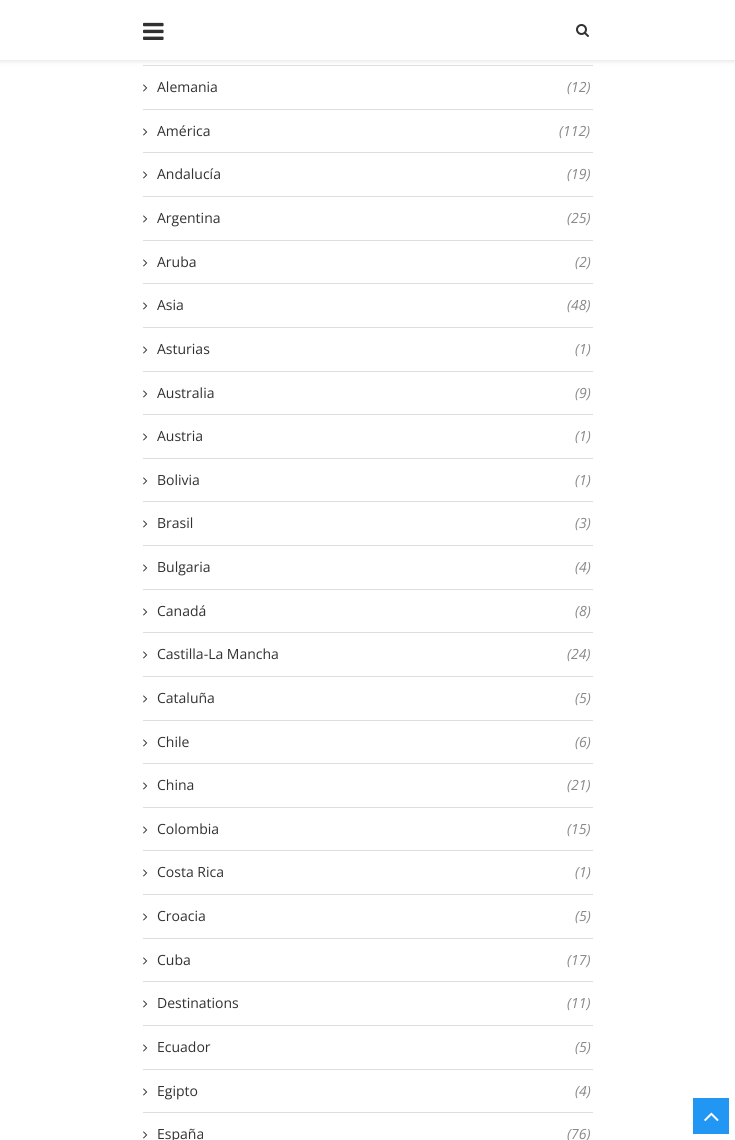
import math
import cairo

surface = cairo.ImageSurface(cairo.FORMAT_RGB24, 735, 1140)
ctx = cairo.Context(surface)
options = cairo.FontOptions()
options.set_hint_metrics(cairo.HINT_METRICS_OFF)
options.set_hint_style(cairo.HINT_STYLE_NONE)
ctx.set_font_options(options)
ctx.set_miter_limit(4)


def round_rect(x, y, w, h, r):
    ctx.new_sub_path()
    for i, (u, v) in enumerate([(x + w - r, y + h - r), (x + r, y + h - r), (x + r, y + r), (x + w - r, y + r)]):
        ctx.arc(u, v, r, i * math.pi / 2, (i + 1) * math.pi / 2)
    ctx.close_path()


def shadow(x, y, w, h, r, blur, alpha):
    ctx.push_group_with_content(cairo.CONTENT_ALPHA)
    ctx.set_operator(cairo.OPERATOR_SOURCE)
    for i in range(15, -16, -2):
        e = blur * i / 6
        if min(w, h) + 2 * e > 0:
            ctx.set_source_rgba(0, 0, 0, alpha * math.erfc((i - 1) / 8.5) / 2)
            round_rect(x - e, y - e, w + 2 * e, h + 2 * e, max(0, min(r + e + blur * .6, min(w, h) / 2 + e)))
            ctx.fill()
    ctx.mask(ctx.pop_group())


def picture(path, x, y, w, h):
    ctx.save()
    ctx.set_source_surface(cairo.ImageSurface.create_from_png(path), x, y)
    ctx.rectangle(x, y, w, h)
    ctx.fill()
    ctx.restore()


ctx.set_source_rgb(1, 1, 1)
ctx.paint()
ctx.set_source_rgb(0.871, 0.871, 0.871)
ctx.rectangle(143, 65, 450, 1)
ctx.fill()
ctx.set_source_rgb(0.745, 0.745, 0.745)
shadow(0, 1, 735, 60, 0, 2.5, 0.46)
ctx.set_source_rgb(1, 1, 1)
ctx.rectangle(0, 0, 735, 60)
ctx.fill()
picture("img1.png", 143, 22, 21, 18)
picture("img2.png", 576, 24, 13, 13)
ctx.set_source_rgb(0.871, 0.871, 0.871)
ctx.rectangle(143, 109, 450, 1)
ctx.fill()
picture("img3.png", 143, 84, 5, 8)
ctx.select_font_face("Open Sans")
ctx.set_font_size(14)
ctx.set_source_rgb(0.192, 0.192, 0.192)
ctx.move_to(157, 92)
ctx.show_text("Alemania")
ctx.select_font_face("Open Sans", cairo.FONT_SLANT_ITALIC)
ctx.set_source_rgb(0.533, 0.533, 0.533)
ctx.move_to(567, 92)
ctx.show_text("(12)")
ctx.set_source_rgb(0.871, 0.871, 0.871)
ctx.rectangle(143, 152, 450, 1)
ctx.fill()
picture("img3.png", 143, 128, 5, 8)
ctx.select_font_face("Open Sans")
ctx.set_source_rgb(0.192, 0.192, 0.192)
ctx.move_to(157, 136)
ctx.show_text("América")
ctx.select_font_face("Open Sans", cairo.FONT_SLANT_ITALIC)
ctx.set_source_rgb(0.533, 0.533, 0.533)
ctx.move_to(559, 136)
ctx.show_text("(112)")
ctx.set_source_rgb(0.871, 0.871, 0.871)
ctx.rectangle(143, 196, 450, 1)
ctx.fill()
picture("img3.png", 143, 171, 5, 8)
ctx.select_font_face("Open Sans")
ctx.set_source_rgb(0.192, 0.192, 0.192)
ctx.move_to(157, 179)
ctx.show_text("Andalucía")
ctx.select_font_face("Open Sans", cairo.FONT_SLANT_ITALIC)
ctx.set_source_rgb(0.533, 0.533, 0.533)
ctx.move_to(567, 179)
ctx.show_text("(19)")
ctx.set_source_rgb(0.871, 0.871, 0.871)
ctx.rectangle(143, 240, 450, 1)
ctx.fill()
picture("img3.png", 143, 215, 5, 8)
ctx.select_font_face("Open Sans")
ctx.set_source_rgb(0.192, 0.192, 0.192)
ctx.move_to(157, 223)
ctx.show_text("Argentina")
ctx.select_font_face("Open Sans", cairo.FONT_SLANT_ITALIC)
ctx.set_source_rgb(0.533, 0.533, 0.533)
ctx.move_to(567, 223)
ctx.show_text("(25)")
ctx.set_source_rgb(0.871, 0.871, 0.871)
ctx.rectangle(143, 283, 450, 1)
ctx.fill()
picture("img3.png", 143, 259, 5, 8)
ctx.select_font_face("Open Sans")
ctx.set_source_rgb(0.192, 0.192, 0.192)
ctx.move_to(157, 267)
ctx.show_text("Aruba")
ctx.select_font_face("Open Sans", cairo.FONT_SLANT_ITALIC)
ctx.set_source_rgb(0.533, 0.533, 0.533)
ctx.move_to(575, 267)
ctx.show_text("(2)")
ctx.set_source_rgb(0.871, 0.871, 0.871)
ctx.rectangle(143, 327, 450, 1)
ctx.fill()
picture("img3.png", 143, 302, 5, 8)
ctx.select_font_face("Open Sans")
ctx.set_source_rgb(0.192, 0.192, 0.192)
ctx.move_to(157, 310)
ctx.show_text("Asia")
ctx.select_font_face("Open Sans", cairo.FONT_SLANT_ITALIC)
ctx.set_source_rgb(0.533, 0.533, 0.533)
ctx.move_to(567, 310)
ctx.show_text("(48)")
ctx.set_source_rgb(0.871, 0.871, 0.871)
ctx.rectangle(143, 371, 450, 1)
ctx.fill()
picture("img3.png", 143, 346, 5, 8)
ctx.select_font_face("Open Sans")
ctx.set_source_rgb(0.192, 0.192, 0.192)
ctx.move_to(157, 354)
ctx.show_text("Asturias")
ctx.select_font_face("Open Sans", cairo.FONT_SLANT_ITALIC)
ctx.set_source_rgb(0.533, 0.533, 0.533)
ctx.move_to(575, 354)
ctx.show_text("(1)")
ctx.set_source_rgb(0.871, 0.871, 0.871)
ctx.rectangle(143, 414, 450, 1)
ctx.fill()
picture("img3.png", 143, 390, 5, 8)
ctx.select_font_face("Open Sans")
ctx.set_source_rgb(0.192, 0.192, 0.192)
ctx.move_to(157, 398)
ctx.show_text("Australia")
ctx.select_font_face("Open Sans", cairo.FONT_SLANT_ITALIC)
ctx.set_source_rgb(0.533, 0.533, 0.533)
ctx.move_to(575, 398)
ctx.show_text("(9)")
ctx.set_source_rgb(0.871, 0.871, 0.871)
ctx.rectangle(143, 458, 450, 1)
ctx.fill()
picture("img3.png", 143, 433, 5, 8)
ctx.select_font_face("Open Sans")
ctx.set_source_rgb(0.192, 0.192, 0.192)
ctx.move_to(157, 441)
ctx.show_text("Austria")
ctx.select_font_face("Open Sans", cairo.FONT_SLANT_ITALIC)
ctx.set_source_rgb(0.533, 0.533, 0.533)
ctx.move_to(575, 441)
ctx.show_text("(1)")
ctx.set_source_rgb(0.871, 0.871, 0.871)
ctx.rectangle(143, 501, 450, 1)
ctx.fill()
picture("img3.png", 143, 477, 5, 8)
ctx.select_font_face("Open Sans")
ctx.set_source_rgb(0.192, 0.192, 0.192)
ctx.move_to(157, 485)
ctx.show_text("Bolivia")
ctx.select_font_face("Open Sans", cairo.FONT_SLANT_ITALIC)
ctx.set_source_rgb(0.533, 0.533, 0.533)
ctx.move_to(575, 485)
ctx.show_text("(1)")
ctx.set_source_rgb(0.871, 0.871, 0.871)
ctx.rectangle(143, 545, 450, 1)
ctx.fill()
picture("img3.png", 143, 520, 5, 8)
ctx.select_font_face("Open Sans")
ctx.set_source_rgb(0.192, 0.192, 0.192)
ctx.move_to(157, 528)
ctx.show_text("Brasil")
ctx.select_font_face("Open Sans", cairo.FONT_SLANT_ITALIC)
ctx.set_source_rgb(0.533, 0.533, 0.533)
ctx.move_to(575, 528)
ctx.show_text("(3)")
ctx.set_source_rgb(0.871, 0.871, 0.871)
ctx.rectangle(143, 589, 450, 1)
ctx.fill()
picture("img3.png", 143, 564, 5, 8)
ctx.select_font_face("Open Sans")
ctx.set_source_rgb(0.192, 0.192, 0.192)
ctx.move_to(157, 572)
ctx.show_text("Bulgaria")
ctx.select_font_face("Open Sans", cairo.FONT_SLANT_ITALIC)
ctx.set_source_rgb(0.533, 0.533, 0.533)
ctx.move_to(575, 572)
ctx.show_text("(4)")
ctx.set_source_rgb(0.871, 0.871, 0.871)
ctx.rectangle(143, 632, 450, 1)
ctx.fill()
picture("img3.png", 143, 608, 5, 8)
ctx.select_font_face("Open Sans")
ctx.set_source_rgb(0.192, 0.192, 0.192)
ctx.move_to(157, 616)
ctx.show_text("Canadá")
ctx.select_font_face("Open Sans", cairo.FONT_SLANT_ITALIC)
ctx.set_source_rgb(0.533, 0.533, 0.533)
ctx.move_to(575, 616)
ctx.show_text("(8)")
ctx.set_source_rgb(0.871, 0.871, 0.871)
ctx.rectangle(143, 676, 450, 1)
ctx.fill()
picture("img3.png", 143, 651, 5, 8)
ctx.select_font_face("Open Sans")
ctx.set_source_rgb(0.192, 0.192, 0.192)
ctx.move_to(157, 659)
ctx.show_text("Castilla-La Mancha")
ctx.select_font_face("Open Sans", cairo.FONT_SLANT_ITALIC)
ctx.set_source_rgb(0.533, 0.533, 0.533)
ctx.move_to(567, 659)
ctx.show_text("(24)")
ctx.set_source_rgb(0.871, 0.871, 0.871)
ctx.rectangle(143, 720, 450, 1)
ctx.fill()
picture("img3.png", 143, 695, 5, 8)
ctx.select_font_face("Open Sans")
ctx.set_source_rgb(0.192, 0.192, 0.192)
ctx.move_to(157, 703)
ctx.show_text("Cataluña")
ctx.select_font_face("Open Sans", cairo.FONT_SLANT_ITALIC)
ctx.set_source_rgb(0.533, 0.533, 0.533)
ctx.move_to(575, 703)
ctx.show_text("(5)")
ctx.set_source_rgb(0.871, 0.871, 0.871)
ctx.rectangle(143, 763, 450, 1)
ctx.fill()
picture("img3.png", 143, 739, 5, 8)
ctx.select_font_face("Open Sans")
ctx.set_source_rgb(0.192, 0.192, 0.192)
ctx.move_to(157, 747)
ctx.show_text("Chile")
ctx.select_font_face("Open Sans", cairo.FONT_SLANT_ITALIC)
ctx.set_source_rgb(0.533, 0.533, 0.533)
ctx.move_to(575, 747)
ctx.show_text("(6)")
ctx.set_source_rgb(0.871, 0.871, 0.871)
ctx.rectangle(143, 807, 450, 1)
ctx.fill()
picture("img3.png", 143, 782, 5, 8)
ctx.select_font_face("Open Sans")
ctx.set_source_rgb(0.192, 0.192, 0.192)
ctx.move_to(157, 790)
ctx.show_text("China")
ctx.select_font_face("Open Sans", cairo.FONT_SLANT_ITALIC)
ctx.set_source_rgb(0.533, 0.533, 0.533)
ctx.move_to(567, 790)
ctx.show_text("(21)")
ctx.set_source_rgb(0.871, 0.871, 0.871)
ctx.rectangle(143, 850, 450, 1)
ctx.fill()
picture("img3.png", 143, 826, 5, 8)
ctx.select_font_face("Open Sans")
ctx.set_source_rgb(0.192, 0.192, 0.192)
ctx.move_to(157, 834)
ctx.show_text("Colombia")
ctx.select_font_face("Open Sans", cairo.FONT_SLANT_ITALIC)
ctx.set_source_rgb(0.533, 0.533, 0.533)
ctx.move_to(567, 834)
ctx.show_text("(15)")
ctx.set_source_rgb(0.871, 0.871, 0.871)
ctx.rectangle(143, 894, 450, 1)
ctx.fill()
picture("img3.png", 143, 869, 5, 8)
ctx.select_font_face("Open Sans")
ctx.set_source_rgb(0.192, 0.192, 0.192)
ctx.move_to(157, 877)
ctx.show_text("Costa Rica")
ctx.select_font_face("Open Sans", cairo.FONT_SLANT_ITALIC)
ctx.set_source_rgb(0.533, 0.533, 0.533)
ctx.move_to(575, 877)
ctx.show_text("(1)")
ctx.set_source_rgb(0.871, 0.871, 0.871)
ctx.rectangle(143, 938, 450, 1)
ctx.fill()
picture("img3.png", 143, 913, 5, 8)
ctx.select_font_face("Open Sans")
ctx.set_source_rgb(0.192, 0.192, 0.192)
ctx.move_to(157, 921)
ctx.show_text("Croacia")
ctx.select_font_face("Open Sans", cairo.FONT_SLANT_ITALIC)
ctx.set_source_rgb(0.533, 0.533, 0.533)
ctx.move_to(575, 921)
ctx.show_text("(5)")
ctx.set_source_rgb(0.871, 0.871, 0.871)
ctx.rectangle(143, 981, 450, 1)
ctx.fill()
picture("img3.png", 143, 957, 5, 8)
ctx.select_font_face("Open Sans")
ctx.set_source_rgb(0.192, 0.192, 0.192)
ctx.move_to(157, 965)
ctx.show_text("Cuba")
ctx.select_font_face("Open Sans", cairo.FONT_SLANT_ITALIC)
ctx.set_source_rgb(0.533, 0.533, 0.533)
ctx.move_to(567, 965)
ctx.show_text("(17)")
ctx.set_source_rgb(0.871, 0.871, 0.871)
ctx.rectangle(143, 1025, 450, 1)
ctx.fill()
picture("img3.png", 143, 1000, 5, 8)
ctx.select_font_face("Open Sans")
ctx.set_source_rgb(0.192, 0.192, 0.192)
ctx.move_to(157, 1008)
ctx.show_text("Destinations")
ctx.select_font_face("Open Sans", cairo.FONT_SLANT_ITALIC)
ctx.set_source_rgb(0.533, 0.533, 0.533)
ctx.move_to(567, 1008)
ctx.show_text("(11)")
ctx.set_source_rgb(0.871, 0.871, 0.871)
ctx.rectangle(143, 1069, 450, 1)
ctx.fill()
picture("img3.png", 143, 1044, 5, 8)
ctx.select_font_face("Open Sans")
ctx.set_source_rgb(0.192, 0.192, 0.192)
ctx.move_to(157, 1052)
ctx.show_text("Ecuador")
ctx.select_font_face("Open Sans", cairo.FONT_SLANT_ITALIC)
ctx.set_source_rgb(0.533, 0.533, 0.533)
ctx.move_to(575, 1052)
ctx.show_text("(5)")
ctx.set_source_rgb(0.871, 0.871, 0.871)
ctx.rectangle(143, 1112, 450, 1)
ctx.fill()
picture("img3.png", 143, 1088, 5, 8)
ctx.select_font_face("Open Sans")
ctx.set_source_rgb(0.192, 0.192, 0.192)
ctx.move_to(157, 1096)
ctx.show_text("Egipto")
ctx.select_font_face("Open Sans", cairo.FONT_SLANT_ITALIC)
ctx.set_source_rgb(0.533, 0.533, 0.533)
ctx.move_to(575, 1096)
ctx.show_text("(4)")
picture("img3.png", 143, 1131, 5, 8)
ctx.select_font_face("Open Sans")
ctx.set_source_rgb(0.192, 0.192, 0.192)
ctx.move_to(157, 1139)
ctx.show_text("España")
ctx.select_font_face("Open Sans", cairo.FONT_SLANT_ITALIC)
ctx.set_source_rgb(0.533, 0.533, 0.533)
ctx.move_to(567, 1139)
ctx.show_text("(76)")
ctx.set_source_rgb(0.129, 0.588, 0.953)
ctx.rectangle(693, 1098, 36, 36)
ctx.fill()
picture("img4.png", 704, 1112, 15, 9)
surface.write_to_png("page.png")
